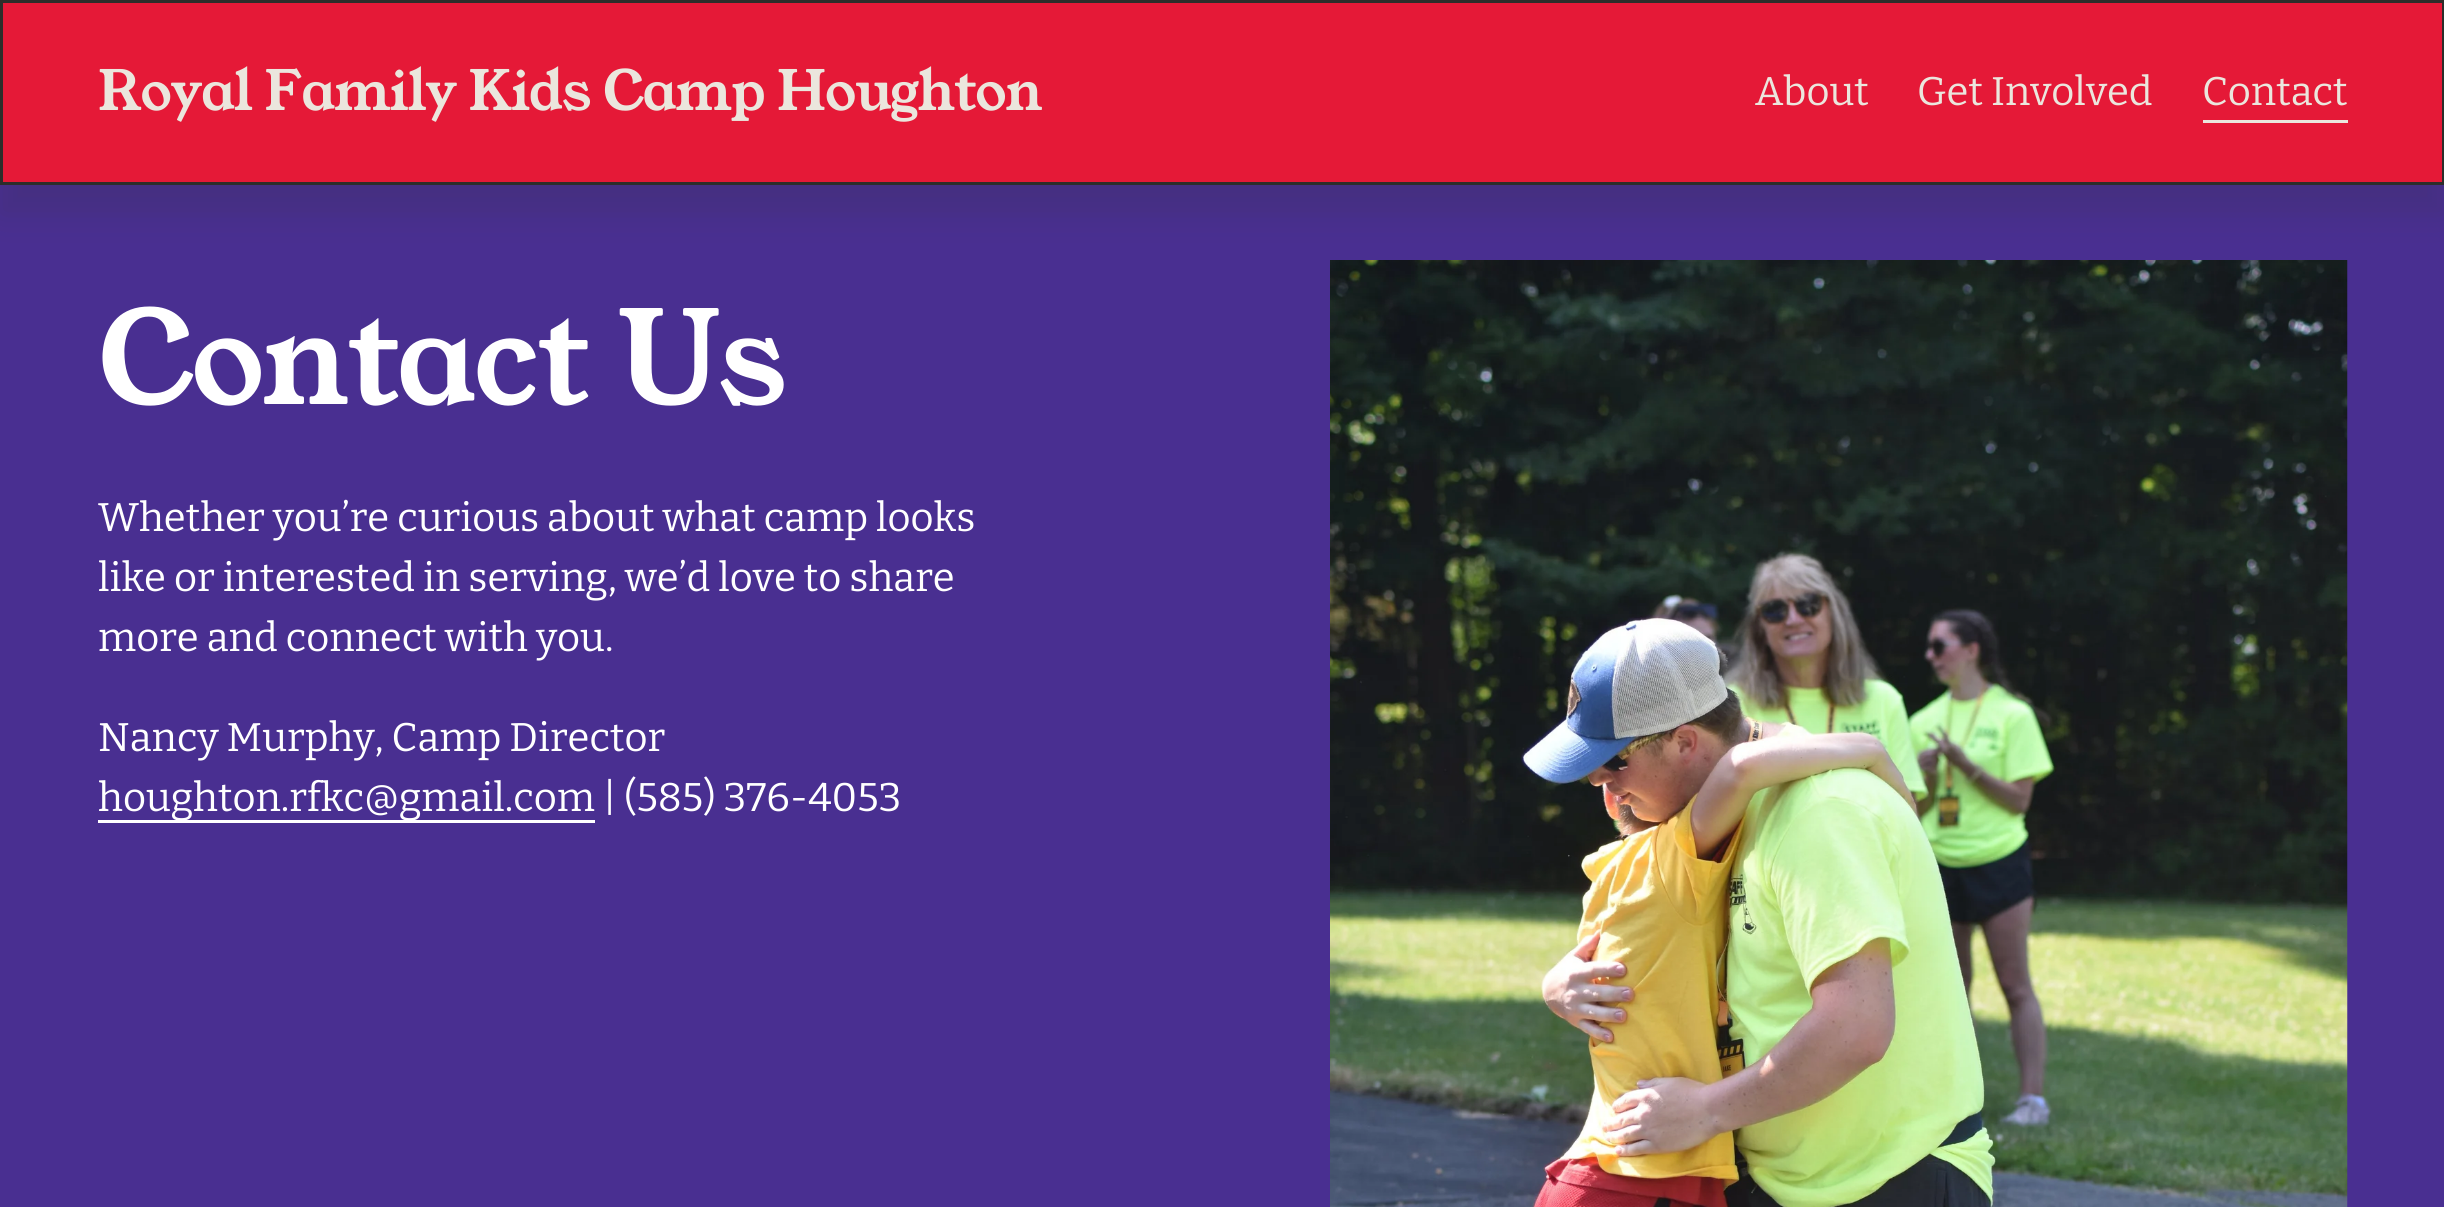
import math
import cairo

surface = cairo.ImageSurface(cairo.FORMAT_RGB24, 2444, 1207)
ctx = cairo.Context(surface)
options = cairo.FontOptions()
options.set_hint_metrics(cairo.HINT_METRICS_OFF)
options.set_hint_style(cairo.HINT_STYLE_NONE)
ctx.set_font_options(options)
ctx.set_miter_limit(4)


def spaced_text(x, y, s, letter, word):
    ctx.move_to(x, y)
    for ch in s:
        ctx.show_text(ch)
        ctx.rel_move_to(letter + word * (ch == ' '), 0)


def round_rect(x, y, w, h, r):
    ctx.new_sub_path()
    for i, (u, v) in enumerate([(x + w - r, y + h - r), (x + r, y + h - r), (x + r, y + r), (x + w - r, y + r)]):
        ctx.arc(u, v, r, i * math.pi / 2, (i + 1) * math.pi / 2)
    ctx.close_path()


def shadow(x, y, w, h, r, blur, alpha):
    ctx.push_group_with_content(cairo.CONTENT_ALPHA)
    ctx.set_operator(cairo.OPERATOR_SOURCE)
    for i in range(15, -16, -2):
        e = blur * i / 6
        if min(w, h) + 2 * e > 0:
            ctx.set_source_rgba(0, 0, 0, alpha * math.erfc((i - 1) / 8.5) / 2)
            round_rect(x - e, y - e, w + 2 * e, h + 2 * e, max(0, min(r + e + blur * .6, min(w, h) / 2 + e)))
            ctx.fill()
    ctx.mask(ctx.pop_group())


def picture(path, x, y, w, h):
    ctx.save()
    ctx.set_source_surface(cairo.ImageSurface.create_from_png(path), x, y)
    ctx.rectangle(x, y, w, h)
    ctx.fill()
    ctx.restore()


ctx.set_source_rgb(0.286, 0.184, 0.569)
ctx.paint()
picture("img1.png", 1330, 260, 1018, 947)
ctx.set_source_rgb(0.271, 0.184, 0.506)
shadow(0, 30, 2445, 185, 0, 15, 1)
ctx.set_source_rgb(0.898, 0.098, 0.216)
ctx.rectangle(1.5, 1.5, 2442, 182)
ctx.fill_preserve()
ctx.set_source_rgb(0.176, 0.176, 0.165)
ctx.set_line_width(3)
ctx.stroke()
ctx.select_font_face("Young Serif")
ctx.set_font_size(54.7)
ctx.set_source_rgb(0.918, 0.902, 0.867)
spaced_text(98, 110, "Royal Family Kids Camp Houghton", -1.1, 0)
ctx.select_font_face("Bitter")
ctx.set_font_size(40)
ctx.move_to(1755, 105)
ctx.show_text("About")
ctx.move_to(1917, 105)
ctx.show_text("Get Involved")
ctx.rectangle(2203, 120, 145, 3)
ctx.fill()
ctx.move_to(2202, 105)
ctx.show_text("Contact")
ctx.select_font_face("Young Serif")
ctx.set_font_size(128)
ctx.set_source_rgb(1, 1, 1)
spaced_text(98, 404, "Contact Us", -2.5, 0)
ctx.select_font_face("Bitter")
ctx.set_font_size(40)
ctx.move_to(98, 531)
ctx.show_text("Whether you’re curious about what camp looks")
ctx.move_to(98, 591)
ctx.show_text("like or interested in serving, we’d love to share")
ctx.move_to(98, 651)
ctx.show_text("more and connect with you.")
ctx.move_to(98, 751)
ctx.show_text("Nancy Murphy, Camp Director")
ctx.rectangle(98, 820, 497, 3)
ctx.fill()
ctx.move_to(98, 811)
ctx.show_text("houghton.rfkc@gmail.com | (585) 376-4053")
surface.write_to_png("page.png")
